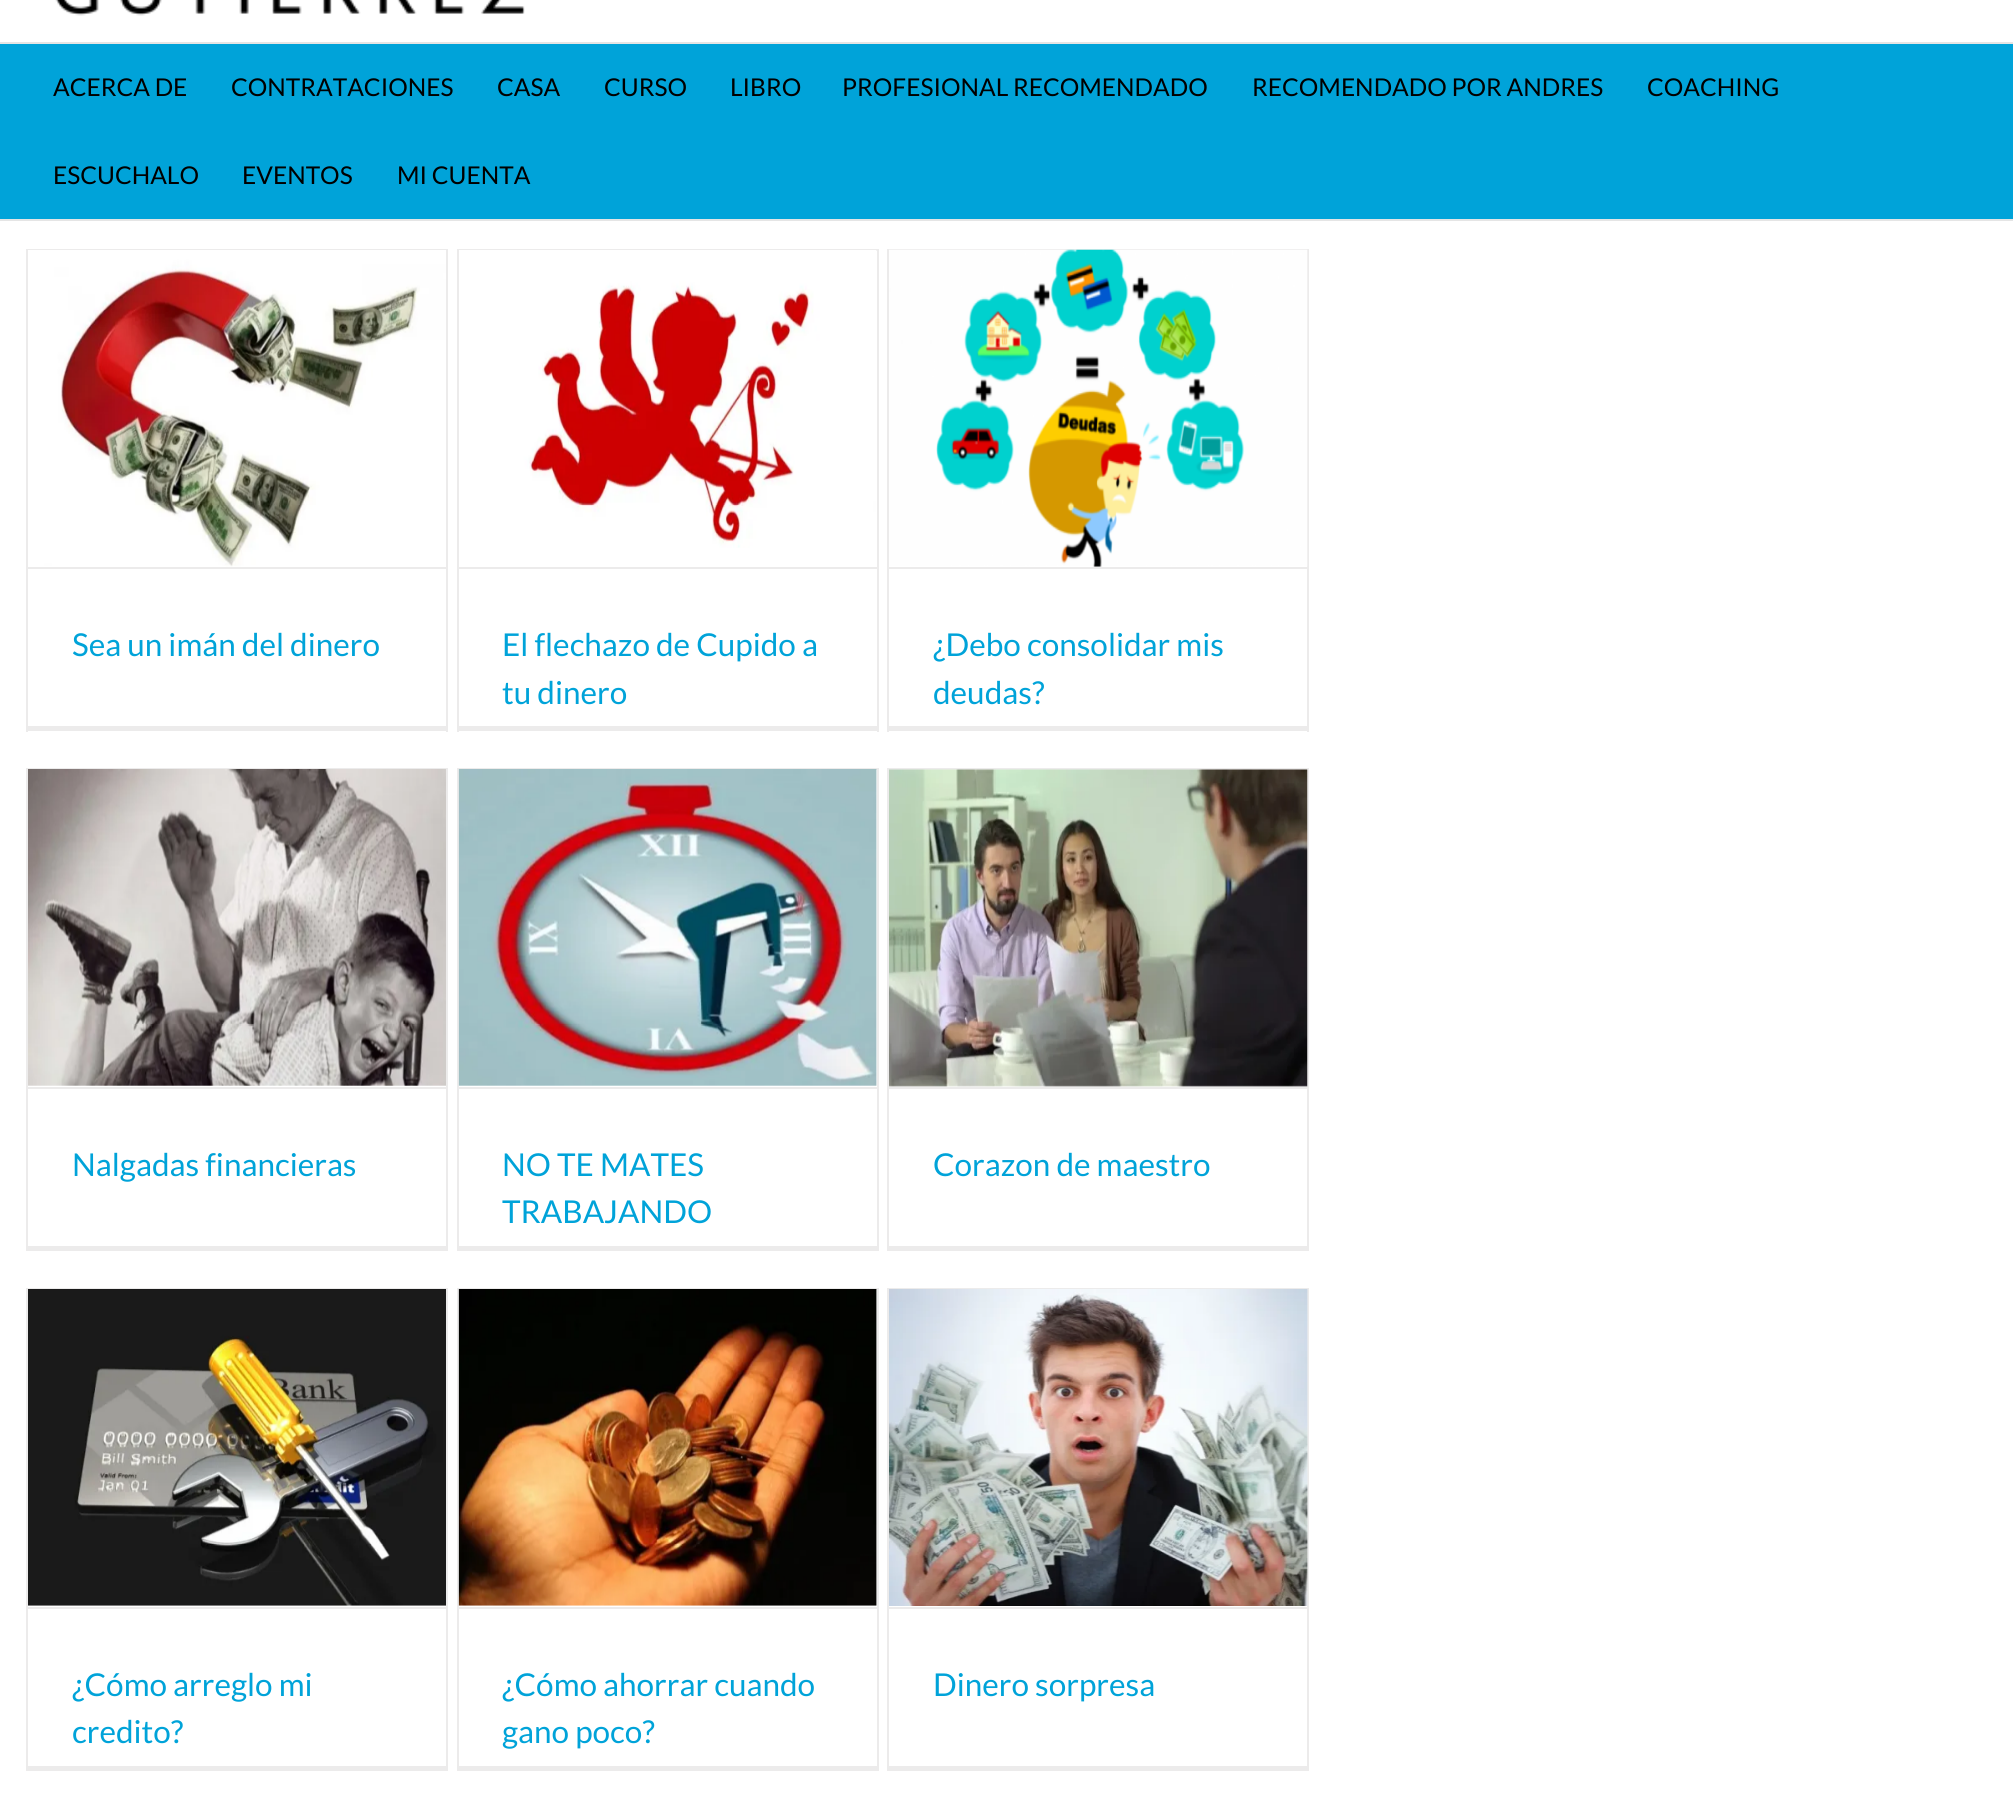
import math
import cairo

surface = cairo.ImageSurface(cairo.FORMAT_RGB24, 2013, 1811)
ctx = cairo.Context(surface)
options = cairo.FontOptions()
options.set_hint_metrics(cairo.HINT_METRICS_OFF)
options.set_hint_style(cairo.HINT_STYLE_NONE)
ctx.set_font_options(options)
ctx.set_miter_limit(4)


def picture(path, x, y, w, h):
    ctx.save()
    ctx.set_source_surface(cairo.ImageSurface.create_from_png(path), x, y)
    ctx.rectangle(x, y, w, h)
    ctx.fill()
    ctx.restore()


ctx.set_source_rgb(1, 1, 1)
ctx.paint()
ctx.set_source_rgb(0.898, 0.898, 0.898)
ctx.rectangle(0, 42, 2013, 2)
ctx.fill()
picture("img1.png", 55, 0, 470, 16)
ctx.set_source_rgb(0, 0.639, 0.851)
ctx.rectangle(0, 44, 2013, 175)
ctx.fill()
ctx.set_source_rgb(0.898, 0.898, 0.898)
ctx.rectangle(0, 219, 2013, 2)
ctx.fill()
ctx.select_font_face("Lato")
ctx.set_font_size(24.5)
ctx.set_source_rgb(0, 0, 0)
ctx.move_to(53, 96)
ctx.show_text("ACERCA DE")
ctx.move_to(231, 96)
ctx.show_text("CONTRATACIONES")
ctx.move_to(497, 96)
ctx.show_text("CASA")
ctx.move_to(604, 96)
ctx.show_text("CURSO")
ctx.move_to(730, 96)
ctx.show_text("LIBRO")
ctx.move_to(842, 96)
ctx.show_text("PROFESIONAL RECOMENDADO")
ctx.move_to(1252, 96)
ctx.show_text("RECOMENDADO POR ANDRES")
ctx.move_to(1647, 96)
ctx.show_text("COACHING")
ctx.move_to(53, 184)
ctx.show_text("ESCUCHALO")
ctx.move_to(242, 184)
ctx.show_text("EVENTOS")
ctx.move_to(397, 184)
ctx.show_text("MI CUENTA")
ctx.set_source_rgb(0.922, 0.918, 0.918)
ctx.rectangle(26, 249, 422, 1)
ctx.fill()
ctx.rectangle(446, 249, 2, 483)
ctx.fill()
ctx.rectangle(26, 726, 422, 5)
ctx.fill()
ctx.rectangle(26, 249, 2, 483)
ctx.fill()
ctx.rectangle(28, 567, 418, 2)
ctx.fill()
picture("img2.png", 28, 250, 418, 317)
ctx.set_font_size(31.5)
ctx.set_source_rgb(0, 0.639, 0.851)
ctx.move_to(72, 656)
ctx.show_text("Sea un imán del dinero")
ctx.set_source_rgb(0.922, 0.918, 0.918)
ctx.rectangle(457, 249, 422, 2)
ctx.fill()
ctx.rectangle(877, 249, 2, 483)
ctx.fill()
ctx.rectangle(457, 726, 422, 5)
ctx.fill()
ctx.rectangle(457, 249, 2, 483)
ctx.fill()
ctx.rectangle(459, 567, 418, 2)
ctx.fill()
picture("img3.png", 459, 250, 418, 298)
ctx.set_source_rgb(0, 0.639, 0.851)
ctx.move_to(502, 656)
ctx.show_text("El flechazo de Cupido a")
ctx.move_to(502, 704)
ctx.show_text("tu dinero")
ctx.set_source_rgb(0.922, 0.918, 0.918)
ctx.rectangle(887, 249, 422, 1)
ctx.fill()
ctx.rectangle(1307, 249, 2, 483)
ctx.fill()
ctx.rectangle(887, 726, 422, 5)
ctx.fill()
ctx.rectangle(887, 249, 2, 483)
ctx.fill()
ctx.rectangle(889, 567, 418, 2)
ctx.fill()
picture("img4.png", 889, 249, 419, 318)
ctx.set_source_rgb(0, 0.639, 0.851)
ctx.move_to(933, 656)
ctx.show_text("¿Debo consolidar mis")
ctx.move_to(933, 704)
ctx.show_text("deudas?")
ctx.set_source_rgb(0.922, 0.918, 0.918)
ctx.rectangle(26, 768, 422, 1)
ctx.fill()
ctx.rectangle(446, 768, 2, 483)
ctx.fill()
ctx.rectangle(26, 1246, 422, 5)
ctx.fill()
ctx.rectangle(26, 768, 2, 483)
ctx.fill()
ctx.rectangle(28, 1087, 418, 2)
ctx.fill()
picture("img5.png", 28, 769, 418, 317)
ctx.set_source_rgb(0, 0.639, 0.851)
ctx.move_to(72, 1176)
ctx.show_text("Nalgadas financieras")
ctx.set_source_rgb(0.922, 0.918, 0.918)
ctx.rectangle(457, 768, 422, 2)
ctx.fill()
ctx.rectangle(877, 768, 2, 483)
ctx.fill()
ctx.rectangle(457, 1246, 422, 5)
ctx.fill()
ctx.rectangle(457, 768, 2, 483)
ctx.fill()
ctx.rectangle(459, 1087, 418, 2)
ctx.fill()
picture("img6.png", 458, 769, 419, 317)
ctx.set_source_rgb(0, 0.639, 0.851)
ctx.move_to(502, 1176)
ctx.show_text("NO TE MATES")
ctx.move_to(502, 1223)
ctx.show_text("TRABAJANDO")
ctx.set_source_rgb(0.922, 0.918, 0.918)
ctx.rectangle(887, 768, 422, 2)
ctx.fill()
ctx.rectangle(1307, 768, 2, 483)
ctx.fill()
ctx.rectangle(887, 1246, 422, 5)
ctx.fill()
ctx.rectangle(887, 768, 2, 483)
ctx.fill()
ctx.rectangle(889, 1087, 418, 2)
ctx.fill()
picture("img7.png", 889, 769, 419, 318)
ctx.set_source_rgb(0, 0.639, 0.851)
ctx.move_to(933, 1176)
ctx.show_text("Corazon de maestro")
ctx.set_source_rgb(0.922, 0.918, 0.918)
ctx.rectangle(26, 1288, 422, 1)
ctx.fill()
ctx.rectangle(446, 1288, 2, 483)
ctx.fill()
ctx.rectangle(26, 1766, 422, 5)
ctx.fill()
ctx.rectangle(26, 1288, 2, 483)
ctx.fill()
ctx.rectangle(28, 1607, 418, 2)
ctx.fill()
picture("img8.png", 28, 1289, 418, 317)
ctx.set_source_rgb(0, 0.639, 0.851)
ctx.move_to(72, 1696)
ctx.show_text("¿Cómo arreglo mi")
ctx.move_to(72, 1743)
ctx.show_text("credito?")
ctx.set_source_rgb(0.922, 0.918, 0.918)
ctx.rectangle(457, 1288, 422, 2)
ctx.fill()
ctx.rectangle(877, 1288, 2, 483)
ctx.fill()
ctx.rectangle(457, 1766, 422, 5)
ctx.fill()
ctx.rectangle(457, 1288, 2, 483)
ctx.fill()
ctx.rectangle(459, 1607, 418, 2)
ctx.fill()
picture("img9.png", 458, 1289, 419, 317)
ctx.set_source_rgb(0, 0.639, 0.851)
ctx.move_to(502, 1696)
ctx.show_text("¿Cómo ahorrar cuando")
ctx.move_to(502, 1743)
ctx.show_text("gano poco?")
ctx.set_source_rgb(0.922, 0.918, 0.918)
ctx.rectangle(887, 1288, 422, 1)
ctx.fill()
ctx.rectangle(1307, 1288, 2, 483)
ctx.fill()
ctx.rectangle(887, 1766, 422, 5)
ctx.fill()
ctx.rectangle(887, 1288, 2, 483)
ctx.fill()
ctx.rectangle(889, 1607, 418, 2)
ctx.fill()
picture("img10.png", 889, 1289, 419, 317)
ctx.set_source_rgb(0, 0.639, 0.851)
ctx.move_to(933, 1696)
ctx.show_text("Dinero sorpresa")
surface.write_to_png("page.png")
